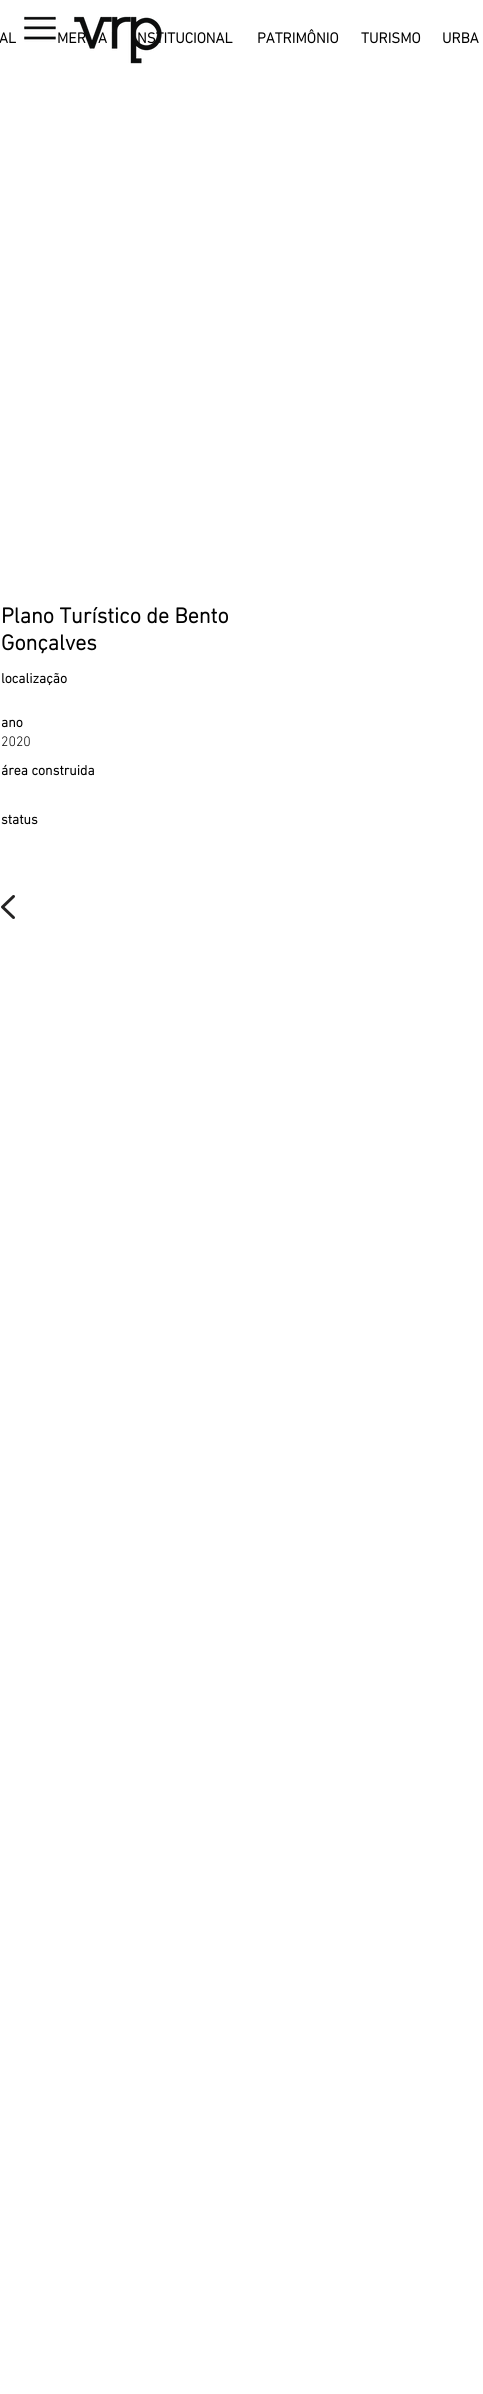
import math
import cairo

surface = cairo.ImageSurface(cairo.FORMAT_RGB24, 483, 2394)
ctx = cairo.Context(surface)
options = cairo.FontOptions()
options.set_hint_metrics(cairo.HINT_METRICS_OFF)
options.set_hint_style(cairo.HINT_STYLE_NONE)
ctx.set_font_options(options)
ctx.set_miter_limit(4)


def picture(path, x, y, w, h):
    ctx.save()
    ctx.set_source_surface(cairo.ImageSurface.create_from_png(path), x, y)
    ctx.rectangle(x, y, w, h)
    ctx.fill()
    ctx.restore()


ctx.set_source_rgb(1, 1, 1)
ctx.paint()
ctx.select_font_face("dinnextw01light", cairo.FONT_SLANT_NORMAL, cairo.FONT_WEIGHT_BOLD)
ctx.set_font_size(15)
ctx.set_source_rgb(0, 0, 0)
ctx.move_to(57, 43)
ctx.show_text("MER")
ctx.move_to(98, 43)
ctx.show_text("A")
ctx.move_to(137, 43)
ctx.show_text("NSTITUCIONAL")
picture("img1.png", 24, 16, 138, 48)
ctx.move_to(-1, 43)
ctx.show_text("AL")
ctx.move_to(257, 43)
ctx.show_text("PATRIMÔNIO")
ctx.move_to(361, 43)
ctx.show_text("TURISMO")
ctx.move_to(442, 43)
ctx.show_text("URBA")
ctx.set_font_size(22)
ctx.move_to(1, 623)
ctx.show_text("Plano Turístico de Bento")
ctx.move_to(1, 650)
ctx.show_text("Gonçalves")
ctx.set_font_size(14)
ctx.move_to(1, 683)
ctx.show_text("localização")
ctx.move_to(1, 727)
ctx.show_text("ano")
ctx.select_font_face("dinnextw01light Light")
ctx.move_to(1, 746)
ctx.show_text("2020")
ctx.select_font_face("dinnextw01light", cairo.FONT_SLANT_NORMAL, cairo.FONT_WEIGHT_BOLD)
ctx.move_to(1, 775)
ctx.show_text("área construida")
ctx.move_to(1, 824)
ctx.show_text("status")
picture("img2.png", 1, 895, 14, 24)
surface.write_to_png("page.png")
